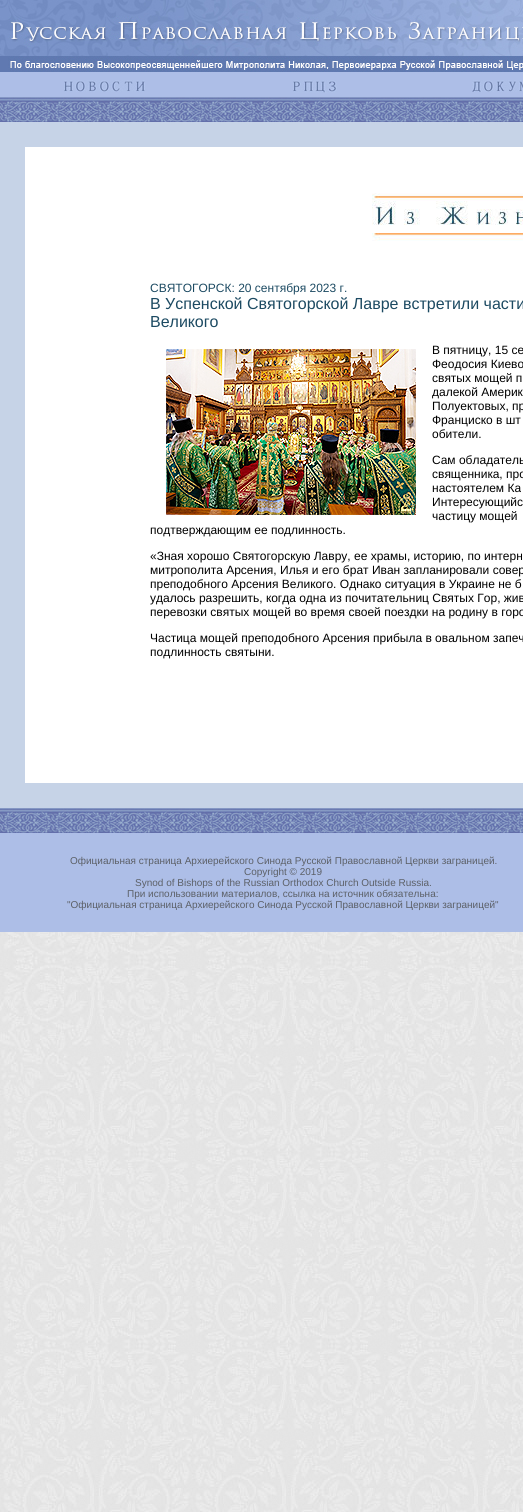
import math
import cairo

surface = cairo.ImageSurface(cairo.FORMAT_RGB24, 523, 1512)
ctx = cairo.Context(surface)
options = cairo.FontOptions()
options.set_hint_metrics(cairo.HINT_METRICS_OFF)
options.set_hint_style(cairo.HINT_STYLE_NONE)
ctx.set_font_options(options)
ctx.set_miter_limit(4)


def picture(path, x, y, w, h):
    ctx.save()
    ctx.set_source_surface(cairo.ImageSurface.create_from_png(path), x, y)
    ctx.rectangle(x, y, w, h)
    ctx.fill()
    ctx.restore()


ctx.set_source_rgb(1, 1, 1)
ctx.paint()
picture("img1.png", 0, 932, 523, 580)
picture("img2.png", 0, 0, 523, 72)
ctx.set_source_rgb(0.678, 0.745, 0.906)
ctx.rectangle(0, 72, 523, 25)
ctx.fill()
picture("img3.png", 64, 80, 81, 12)
picture("img4.png", 293, 80, 44, 13)
picture("img5.png", 472, 80, 51, 12)
picture("img6.png", 0, 97, 523, 25)
ctx.set_source_rgb(0.776, 0.827, 0.906)
ctx.rectangle(0, 122, 25, 686)
ctx.fill()
ctx.rectangle(25, 122, 498, 25)
ctx.fill()
picture("img7.png", 372, 193, 151, 48)
ctx.select_font_face("Liberation Sans")
ctx.set_font_size(12)
ctx.set_source_rgb(0.11, 0.29, 0.384)
ctx.move_to(150, 292)
ctx.show_text("СВЯТОГОРСК: 20 сентября 2023 г.")
ctx.set_font_size(16)
ctx.move_to(150, 309)
ctx.show_text("В Успенской Святогорской Лавре встретили части")
ctx.move_to(150, 327)
ctx.show_text("Великого")
picture("img8.png", 166, 349, 250, 166)
ctx.set_font_size(12)
ctx.set_source_rgb(0, 0, 0)
ctx.move_to(432, 354)
ctx.show_text("В пятницу, 15 се")
ctx.move_to(432, 368)
ctx.show_text("Феодосия Киево")
ctx.move_to(432, 382)
ctx.show_text("святых мощей п")
ctx.move_to(432, 396)
ctx.show_text("далекой Америк")
ctx.move_to(432, 410)
ctx.show_text("Полуектовых, пр")
ctx.move_to(432, 424)
ctx.show_text("Франциско в шт")
ctx.move_to(432, 438)
ctx.show_text("обители.")
ctx.move_to(432, 464)
ctx.show_text("Сам обладатель")
ctx.move_to(432, 478)
ctx.show_text("священника, про")
ctx.move_to(432, 492)
ctx.show_text("настоятелем Ка")
ctx.move_to(432, 506)
ctx.show_text("Интересующийс")
ctx.move_to(432, 520)
ctx.show_text("частицу мощей")
ctx.move_to(150, 534)
ctx.show_text("подтверждающим ее подлинность.")
ctx.move_to(150, 560)
ctx.show_text("«Зная хорошо Святогорскую Лавру, ее храмы, историю, по интерн")
ctx.move_to(150, 574)
ctx.show_text("митрополита Арсения, Илья и его брат Иван запланировали совер")
ctx.move_to(150, 588)
ctx.show_text("преподобного Арсения Великого. Однако ситуация в Украине не б")
ctx.move_to(150, 602)
ctx.show_text("удалось разрешить, когда одна из почитательниц Святых Гор, жив")
ctx.move_to(150, 616)
ctx.show_text("перевозки святых мощей во время своей поездки на родину в горо")
ctx.move_to(150, 642)
ctx.show_text("Частица мощей преподобного Арсения прибыла в овальном запеч")
ctx.move_to(150, 656)
ctx.show_text("подлинность святыни.")
ctx.set_source_rgb(0.776, 0.827, 0.906)
ctx.rectangle(25, 783, 498, 25)
ctx.fill()
picture("img6.png", 0, 808, 523, 25)
ctx.set_source_rgb(0.678, 0.745, 0.906)
ctx.rectangle(0, 833, 523, 99)
ctx.fill()
ctx.set_font_size(10)
ctx.set_source_rgb(0.361, 0.376, 0.404)
ctx.move_to(70, 864)
ctx.show_text("Официальная страница Архиерейского Синода Русской Православной Церкви заграницей.")
ctx.move_to(244, 875)
ctx.show_text("Copyright © 2019")
ctx.move_to(135, 886)
ctx.show_text("Synod of Bishops of the Russian Orthodox Church Outside Russia.")
ctx.move_to(127, 897)
ctx.show_text("При использовании материалов, ссылка на источник обязательна:")
ctx.move_to(67, 908)
ctx.show_text("\"Официальная страница Архиерейского Синода Русской Православной Церкви заграницей\"")
surface.write_to_png("page.png")
